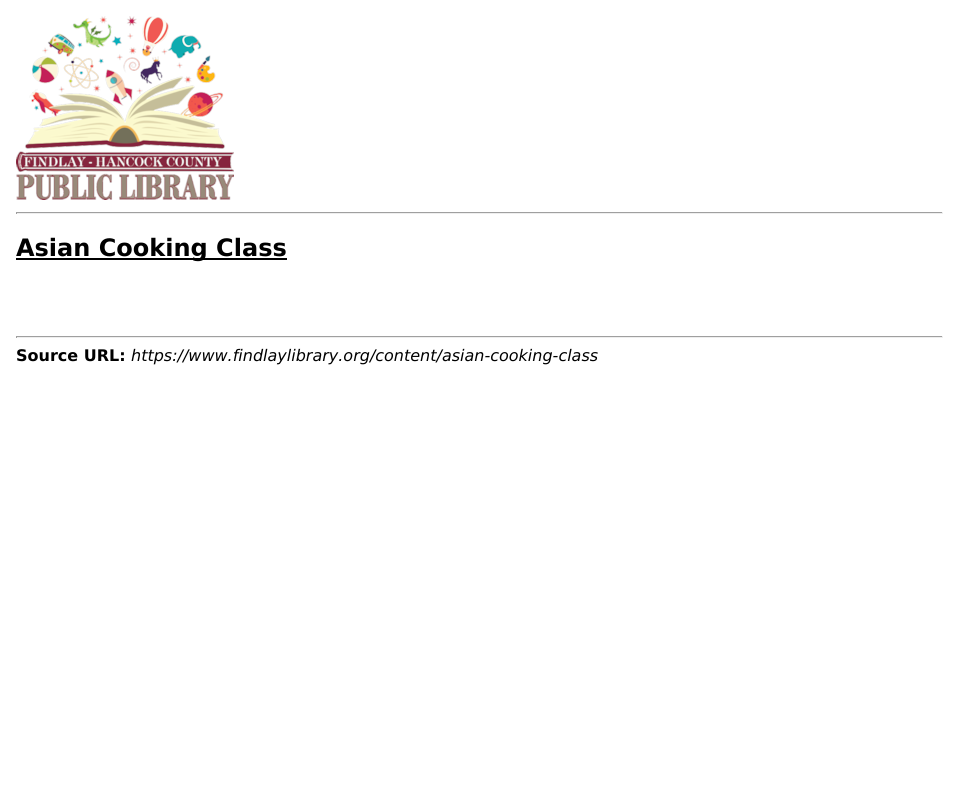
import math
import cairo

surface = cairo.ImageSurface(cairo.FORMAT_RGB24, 959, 801)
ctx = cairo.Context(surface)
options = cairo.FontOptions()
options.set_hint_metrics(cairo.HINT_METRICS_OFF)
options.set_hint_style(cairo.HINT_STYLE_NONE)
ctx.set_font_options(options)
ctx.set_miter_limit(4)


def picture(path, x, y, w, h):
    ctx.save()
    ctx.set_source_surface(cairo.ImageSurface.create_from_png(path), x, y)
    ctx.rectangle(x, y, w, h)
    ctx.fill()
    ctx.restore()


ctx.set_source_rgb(1, 1, 1)
ctx.paint()
picture("img1.png", 16, 16, 218, 184)
ctx.set_source_rgb(0.624, 0.624, 0.624)
ctx.rectangle(16, 212, 927, 1)
ctx.fill()
ctx.set_source_rgb(0.933, 0.933, 0.933)
ctx.rectangle(942, 212, 1, 2)
ctx.fill()
ctx.rectangle(16, 213, 927, 1)
ctx.fill()
ctx.set_source_rgb(0.624, 0.624, 0.624)
ctx.rectangle(16, 212, 1, 2)
ctx.fill()
ctx.set_source_rgb(0, 0, 0)
ctx.rectangle(16, 258, 271, 2)
ctx.fill()
ctx.select_font_face("DejaVu Sans", cairo.FONT_SLANT_NORMAL, cairo.FONT_WEIGHT_BOLD)
ctx.set_font_size(24)
ctx.move_to(16, 256)
ctx.show_text("Asian Cooking Class")
ctx.set_source_rgb(0.624, 0.624, 0.624)
ctx.rectangle(16, 336, 927, 1)
ctx.fill()
ctx.set_source_rgb(0.933, 0.933, 0.933)
ctx.rectangle(942, 336, 1, 2)
ctx.fill()
ctx.rectangle(16, 337, 927, 1)
ctx.fill()
ctx.set_source_rgb(0.624, 0.624, 0.624)
ctx.rectangle(16, 336, 1, 2)
ctx.fill()
ctx.set_font_size(16)
ctx.set_source_rgb(0, 0, 0)
ctx.move_to(16, 361)
ctx.show_text("Source URL:")
ctx.select_font_face("DejaVu Sans", cairo.FONT_SLANT_ITALIC)
ctx.move_to(131, 361)
ctx.show_text("https://www.findlaylibrary.org/content/asian-cooking-class")
surface.write_to_png("page.png")
